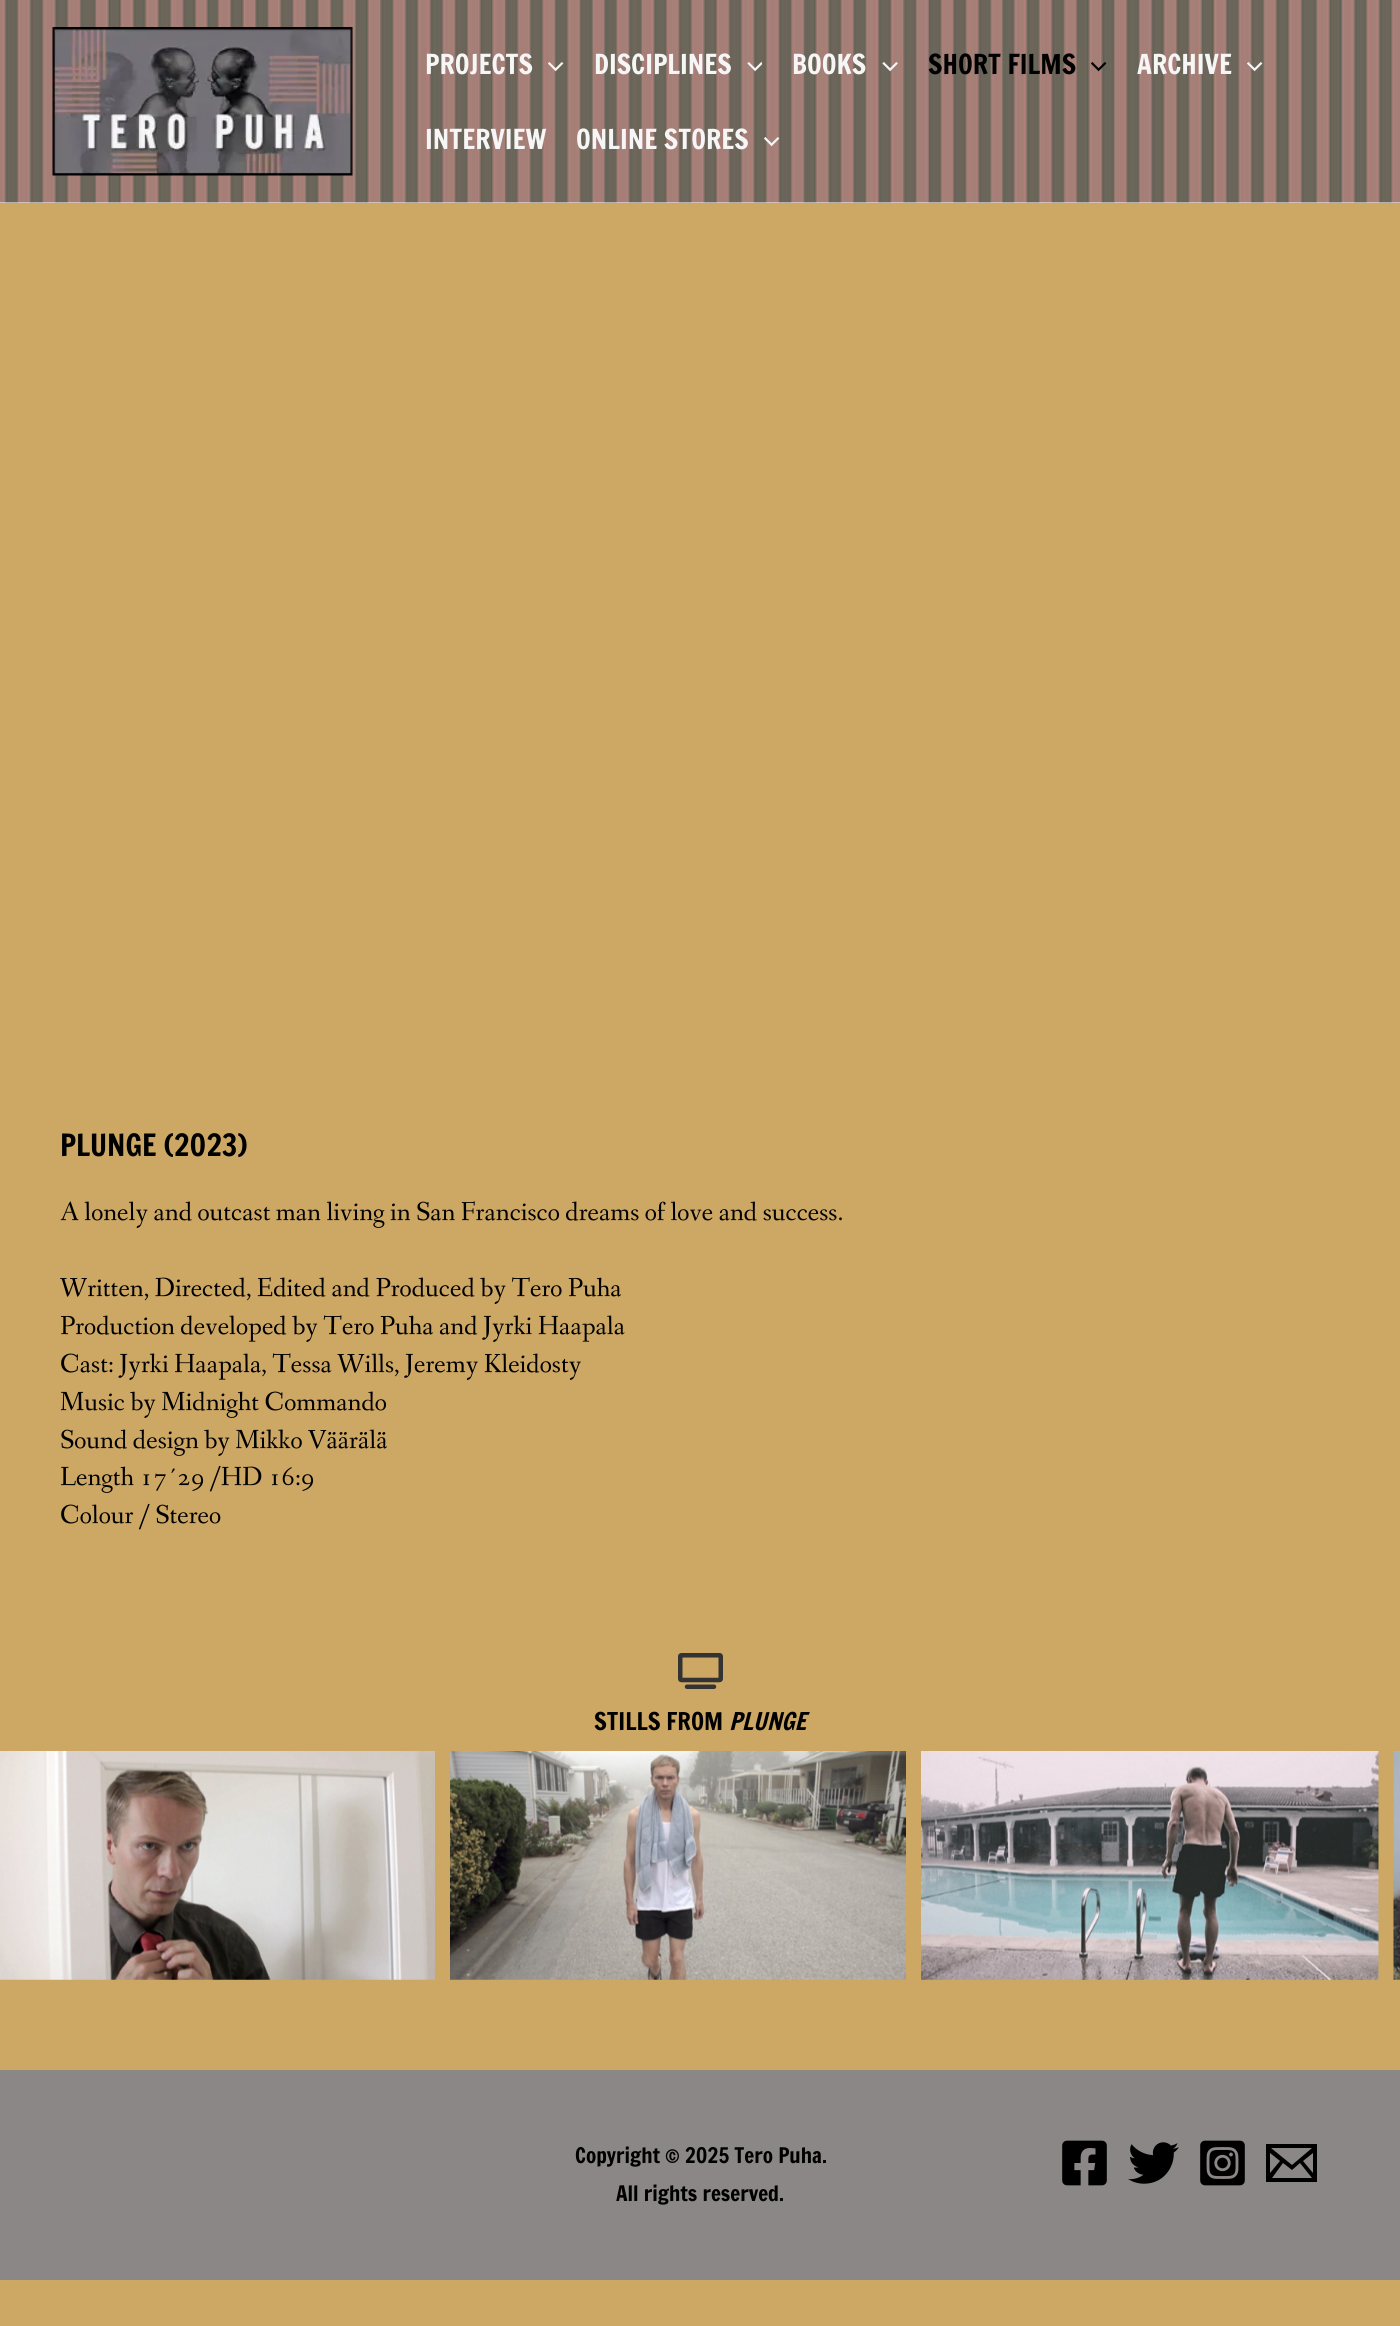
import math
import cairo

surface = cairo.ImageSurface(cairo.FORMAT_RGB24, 1400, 2326)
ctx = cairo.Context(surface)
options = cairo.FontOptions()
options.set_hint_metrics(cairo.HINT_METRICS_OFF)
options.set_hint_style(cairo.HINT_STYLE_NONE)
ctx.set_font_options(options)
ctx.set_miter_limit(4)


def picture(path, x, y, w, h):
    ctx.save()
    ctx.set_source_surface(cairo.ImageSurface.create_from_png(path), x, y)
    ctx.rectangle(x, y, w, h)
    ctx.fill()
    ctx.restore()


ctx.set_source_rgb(0.804, 0.655, 0.392)
ctx.paint()
ctx.set_source_rgb(1, 1, 1)
ctx.rectangle(0, 202, 1400, 1)
ctx.fill()
picture("img1.png", 0, 0, 1400, 203)
picture("img2.png", 52, 27, 301, 149)
ctx.select_font_face("Francois One")
ctx.set_font_size(27)
ctx.set_source_rgb(0.961, 0.961, 0.961)
ctx.move_to(425, 74)
ctx.show_text("PROJECTS")
picture("img3.png", 548, 62, 16, 10)
ctx.move_to(594, 74)
ctx.show_text("DISCIPLINES")
picture("img4.png", 747, 62, 15, 10)
ctx.move_to(792, 74)
ctx.show_text("BOOKS")
picture("img5.png", 882, 62, 16, 10)
ctx.set_source_rgb(0, 0, 0)
ctx.move_to(928, 74)
ctx.show_text("SHORT FILMS")
picture("img6.png", 1091, 62, 16, 10)
ctx.set_source_rgb(0.961, 0.961, 0.961)
ctx.move_to(1137, 74)
ctx.show_text("ARCHIVE")
picture("img7.png", 1247, 62, 16, 10)
ctx.move_to(425, 149)
ctx.show_text("INTERVIEW")
ctx.move_to(576, 149)
ctx.show_text("ONLINE STORES")
picture("img8.png", 764, 137, 16, 10)
ctx.set_font_size(30)
ctx.set_source_rgb(0, 0, 0)
ctx.move_to(60, 1156)
ctx.show_text("PLUNGE (2023)")
ctx.select_font_face("Fanwood Text")
ctx.set_font_size(27)
ctx.move_to(60, 1220)
ctx.show_text("A lonely and outcast man living in San Francisco dreams of love and success.")
ctx.move_to(60, 1296)
ctx.show_text("Written, Directed, Edited and Produced by Tero Puha")
ctx.move_to(60, 1334)
ctx.show_text("Production developed by Tero Puha and Jyrki Haapala")
ctx.move_to(60, 1372)
ctx.show_text("Cast: Jyrki Haapala, Tessa Wills, Jeremy Kleidosty")
ctx.move_to(60, 1410)
ctx.show_text("Music by Midnight Commando")
ctx.move_to(60, 1448)
ctx.show_text("Sound design by Mikko Väärälä")
ctx.move_to(60, 1485)
ctx.show_text("Length 17´29 /HD 16:9")
ctx.move_to(60, 1523)
ctx.show_text("Colour / Stereo")
picture("img9.png", 678, 1653, 45, 36)
ctx.select_font_face("Francois One")
ctx.set_font_size(24)
ctx.move_to(594, 1730)
ctx.show_text("STILLS FROM")
ctx.select_font_face("Francois One", cairo.FONT_SLANT_ITALIC)
ctx.move_to(729, 1730)
ctx.show_text("PLUNGE")
picture("img10.png", 0, 1751, 435, 229)
picture("img11.png", 450, 1751, 456, 229)
picture("img12.png", 921, 1751, 458, 229)
picture("img13.png", 1393, 1751, 7, 229)
ctx.set_source_rgb(0.541, 0.529, 0.525)
ctx.rectangle(0, 2070, 1400, 210)
ctx.fill()
ctx.select_font_face("Francois One")
ctx.set_font_size(21)
ctx.set_source_rgb(0, 0, 0)
ctx.move_to(575, 2163)
ctx.show_text("Copyright © 2025 Tero Puha.")
ctx.move_to(616, 2201)
ctx.show_text("All rights reserved.")
picture("img14.png", 1062, 2140, 45, 46)
picture("img15.png", 1128, 2142, 51, 42)
picture("img16.png", 1200, 2140, 45, 46)
ctx.new_path()
ctx.move_to(1266, 2144)
ctx.line_to(1266, 2182)
ctx.line_to(1317, 2182)
ctx.line_to(1317, 2144)
ctx.close_path()
ctx.move_to(1280, 2161)
ctx.line_to(1270, 2173)
ctx.line_to(1270, 2153)
ctx.close_path()
ctx.move_to(1271, 2148)
ctx.line_to(1312, 2148)
ctx.line_to(1292, 2165)
ctx.close_path()
ctx.move_to(1283, 2163)
ctx.line_to(1292, 2170)
ctx.line_to(1300, 2163)
ctx.line_to(1312, 2178)
ctx.line_to(1272, 2178)
ctx.close_path()
ctx.move_to(1303, 2161)
ctx.line_to(1313, 2153)
ctx.line_to(1313, 2173)
ctx.close_path()
ctx.fill()
surface.write_to_png("page.png")
